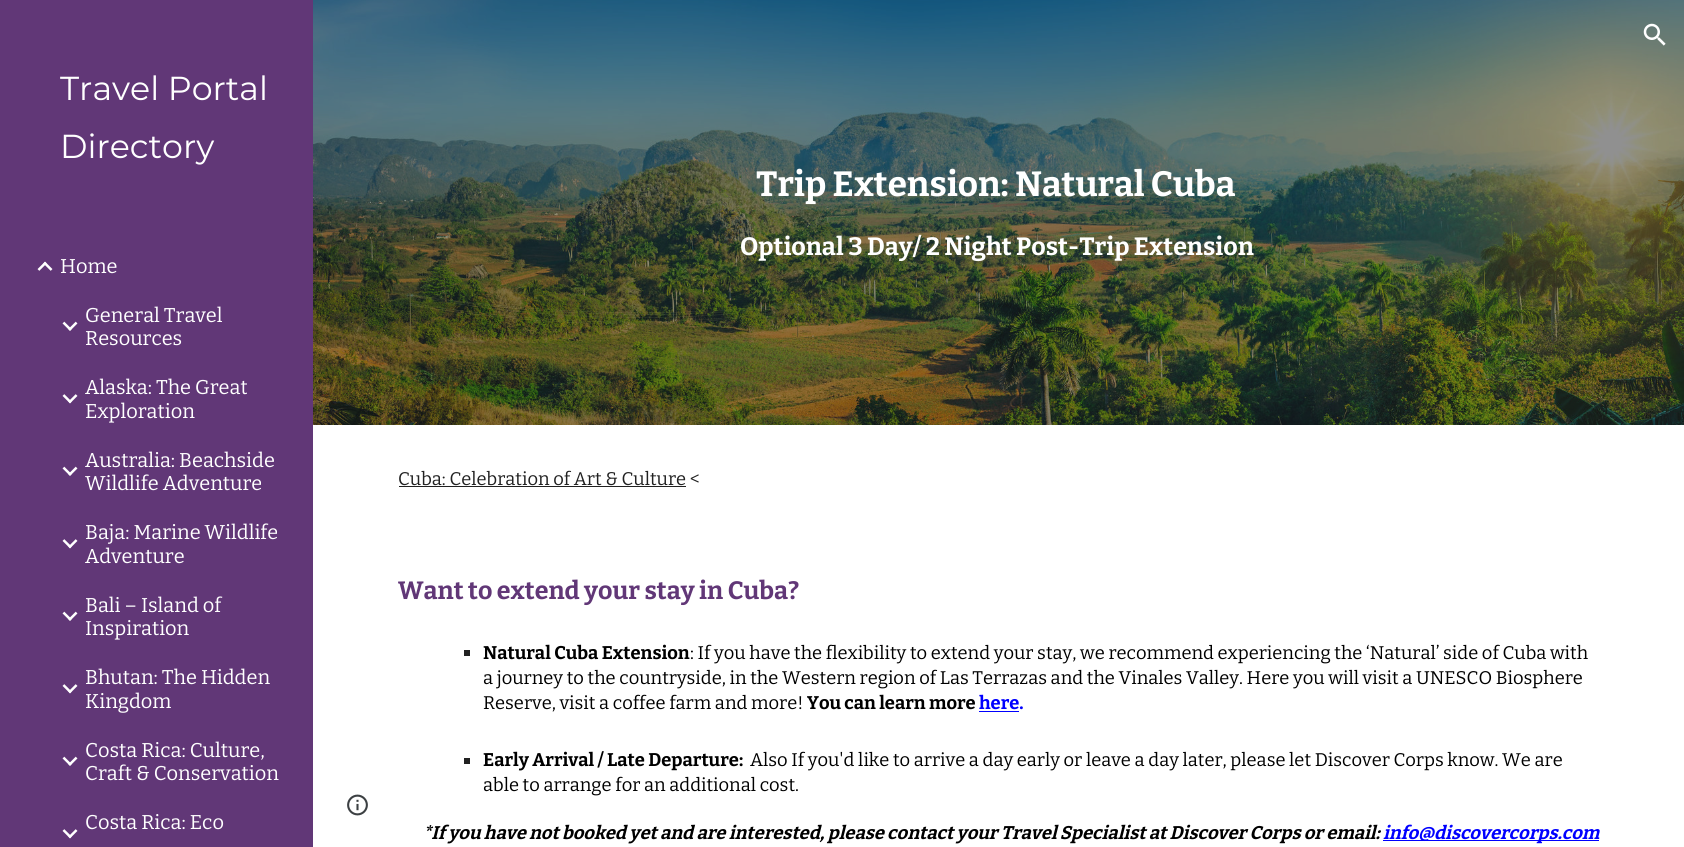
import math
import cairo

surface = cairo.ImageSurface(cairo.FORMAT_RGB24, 1684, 847)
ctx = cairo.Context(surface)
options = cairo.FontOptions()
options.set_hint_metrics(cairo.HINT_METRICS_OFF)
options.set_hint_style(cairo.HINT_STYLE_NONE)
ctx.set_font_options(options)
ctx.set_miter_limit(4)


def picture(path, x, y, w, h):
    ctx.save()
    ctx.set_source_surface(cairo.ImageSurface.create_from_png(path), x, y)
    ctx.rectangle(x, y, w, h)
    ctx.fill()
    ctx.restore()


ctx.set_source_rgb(1, 1, 1)
ctx.paint()
picture("img6.png", 313, 0, 1371, 425)
picture("img1.png", 1643, 23, 23, 23)
ctx.set_source_rgb(0.38, 0.216, 0.467)
ctx.rectangle(0, 0, 313, 847)
ctx.fill()
ctx.select_font_face("Montserrat")
ctx.set_font_size(33.25)
ctx.set_source_rgb(1, 1, 1)
ctx.move_to(60, 100)
ctx.show_text("Travel Portal")
ctx.move_to(60, 158)
ctx.show_text("Directory")
picture("img2.png", 37, 261, 16, 10)
ctx.select_font_face("Bitter")
ctx.set_font_size(20)
ctx.move_to(60, 273)
ctx.show_text("Home")
picture("img3.png", 62, 321, 16, 10)
ctx.move_to(85, 322)
ctx.show_text("General Travel")
ctx.move_to(85, 345)
ctx.show_text("Resources")
picture("img4.png", 62, 394, 16, 10)
ctx.move_to(85, 394)
ctx.show_text("Alaska: The Great")
ctx.move_to(85, 418)
ctx.show_text("Exploration")
picture("img3.png", 62, 466, 16, 10)
ctx.move_to(85, 467)
ctx.show_text("Australia: Beachside")
ctx.move_to(85, 490)
ctx.show_text("Wildlife Adventure")
picture("img4.png", 62, 539, 16, 10)
ctx.move_to(85, 539)
ctx.show_text("Baja: Marine Wildlife")
ctx.move_to(85, 563)
ctx.show_text("Adventure")
picture("img3.png", 62, 611, 16, 10)
ctx.move_to(85, 612)
ctx.show_text("Bali – Island of")
ctx.move_to(85, 635)
ctx.show_text("Inspiration")
picture("img4.png", 62, 684, 16, 10)
ctx.move_to(85, 684)
ctx.show_text("Bhutan: The Hidden")
ctx.move_to(85, 708)
ctx.show_text("Kingdom")
picture("img3.png", 62, 756, 16, 10)
ctx.move_to(85, 757)
ctx.show_text("Costa Rica: Culture,")
ctx.move_to(85, 780)
ctx.show_text("Craft & Conservation")
ctx.move_to(85, 829)
ctx.show_text("Costa Rica: Eco")
picture("img4.png", 62, 829, 16, 10)
picture("img5.png", 347, 794, 21, 22)
ctx.select_font_face("Bitter", cairo.FONT_SLANT_NORMAL, cairo.FONT_WEIGHT_BOLD)
ctx.set_font_size(35)
ctx.move_to(756, 196)
ctx.show_text("Trip Extension: Natural Cuba")
ctx.set_font_size(25)
ctx.move_to(740, 255)
ctx.show_text("Optional 3 Day/ 2 Night Post-Trip Extension")
ctx.select_font_face("Bitter")
ctx.set_font_size(18.33)
ctx.set_source_rgb(0.129, 0.129, 0.129)
ctx.move_to(398, 485)
ctx.show_text("Cuba: Celebration of Art & Culture <")
ctx.rectangle(399, 486, 287, 1)
ctx.fill()
ctx.select_font_face("Bitter", cairo.FONT_SLANT_NORMAL, cairo.FONT_WEIGHT_BOLD)
ctx.set_font_size(25)
ctx.set_source_rgb(0.38, 0.216, 0.467)
ctx.move_to(398, 599)
ctx.show_text("Want to extend your stay in Cuba?")
ctx.set_source_rgb(0.129, 0.129, 0.129)
ctx.rectangle(464, 650, 6, 6)
ctx.fill()
ctx.set_font_size(18.33)
ctx.set_source_rgb(0, 0, 0)
ctx.move_to(483, 659)
ctx.show_text("Natural Cuba Extension")
ctx.select_font_face("Bitter")
ctx.move_to(690, 659)
ctx.show_text(": If you have the flexibility to extend your stay, we recommend experiencing the ‘Natural’ side of Cuba with")
ctx.move_to(483, 684)
ctx.show_text("a journey to the countryside, in the Western region of Las Terrazas and the Vinales Valley. Here you will visit a UNESCO Biosphere")
ctx.move_to(483, 709)
ctx.show_text("Reserve, visit a coffee farm and more!")
ctx.select_font_face("Bitter", cairo.FONT_SLANT_NORMAL, cairo.FONT_WEIGHT_BOLD)
ctx.move_to(807, 709)
ctx.show_text("You can learn more")
ctx.set_source_rgb(0, 0, 1)
ctx.move_to(979, 709)
ctx.show_text("here.")
ctx.rectangle(979, 711, 40, 1)
ctx.fill()
ctx.set_source_rgb(0.129, 0.129, 0.129)
ctx.rectangle(464, 758, 6, 6)
ctx.fill()
ctx.set_source_rgb(0, 0, 0)
ctx.move_to(483, 766)
ctx.show_text("Early Arrival / Late Departure:")
ctx.select_font_face("Bitter")
ctx.move_to(750, 766)
ctx.show_text("Also If you'd like to arrive a day early or leave a day later, please let Discover Corps know. We are")
ctx.move_to(483, 791)
ctx.show_text("able to arrange for an additional cost.")
ctx.select_font_face("Bitter", cairo.FONT_SLANT_ITALIC, cairo.FONT_WEIGHT_BOLD)
ctx.move_to(423, 839)
ctx.show_text("*If you have not booked yet and are interested, please contact your Travel Specialist at Discover Corps or email:")
ctx.set_source_rgb(0, 0, 1)
ctx.rectangle(1383, 840, 216, 1)
ctx.fill()
ctx.move_to(1383, 839)
ctx.show_text("info@discovercorps.com")
surface.write_to_png("page.png")
